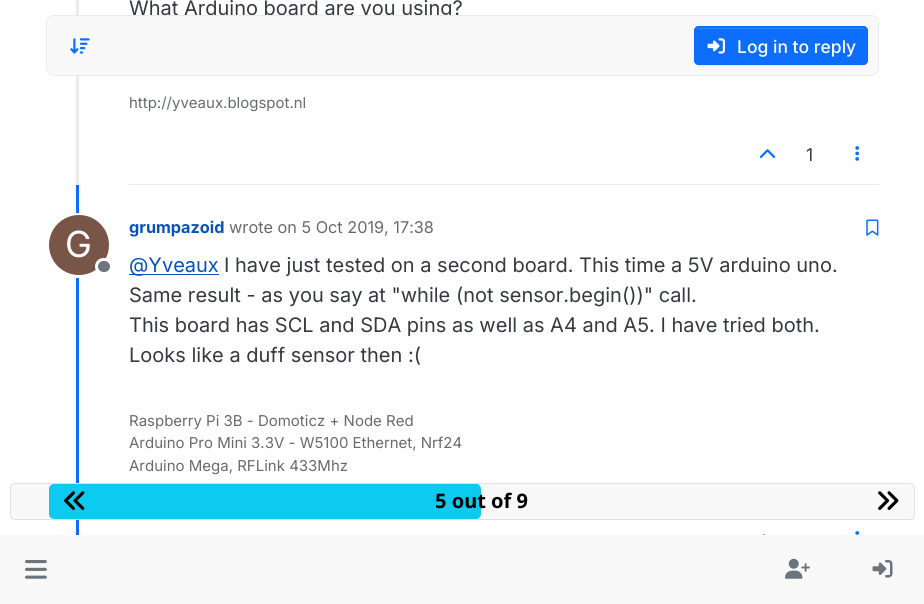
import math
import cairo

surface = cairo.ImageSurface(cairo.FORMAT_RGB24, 924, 604)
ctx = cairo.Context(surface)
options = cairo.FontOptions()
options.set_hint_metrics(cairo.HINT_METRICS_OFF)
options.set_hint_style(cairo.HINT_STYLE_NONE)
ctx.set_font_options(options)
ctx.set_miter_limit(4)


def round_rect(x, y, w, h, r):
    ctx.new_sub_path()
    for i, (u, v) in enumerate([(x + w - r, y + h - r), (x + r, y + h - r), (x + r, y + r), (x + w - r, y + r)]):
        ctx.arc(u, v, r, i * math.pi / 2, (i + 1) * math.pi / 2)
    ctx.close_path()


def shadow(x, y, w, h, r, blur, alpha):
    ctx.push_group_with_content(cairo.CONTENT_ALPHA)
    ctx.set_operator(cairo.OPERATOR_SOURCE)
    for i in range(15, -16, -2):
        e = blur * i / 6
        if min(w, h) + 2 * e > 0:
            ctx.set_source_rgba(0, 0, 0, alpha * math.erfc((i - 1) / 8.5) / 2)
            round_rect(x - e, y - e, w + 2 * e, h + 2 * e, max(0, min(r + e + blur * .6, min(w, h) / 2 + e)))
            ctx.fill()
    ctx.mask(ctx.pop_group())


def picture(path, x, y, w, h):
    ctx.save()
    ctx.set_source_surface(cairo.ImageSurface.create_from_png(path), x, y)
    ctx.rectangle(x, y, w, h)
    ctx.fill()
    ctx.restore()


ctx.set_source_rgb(1, 1, 1)
ctx.paint()
ctx.set_source_rgb(0.914, 0.925, 0.937)
ctx.rectangle(76, 0, 3, 185)
ctx.fill()
ctx.select_font_face("Inter")
ctx.set_font_size(20)
ctx.set_source_rgb(0.204, 0.227, 0.251)
ctx.move_to(129, 15)
ctx.show_text("What Arduino board are you using?")
ctx.set_source_rgb(0.914, 0.925, 0.937)
ctx.rectangle(129, 184, 750, 1)
ctx.fill()
ctx.set_font_size(15)
ctx.set_source_rgb(0.404, 0.42, 0.439)
ctx.move_to(129, 108)
ctx.show_text("http://yveaux.blogspot.nl")
picture("img1.png", 759, 149, 17, 9)
ctx.set_font_size(17.5)
ctx.set_source_rgb(0.204, 0.227, 0.251)
ctx.move_to(806, 161)
ctx.show_text("1")
picture("img2.png", 855, 146, 5, 15)
ctx.set_source_rgb(0.051, 0.431, 0.992)
ctx.rectangle(76, 185, 3, 350)
ctx.fill()
ctx.arc(78.5, 245.5, 31, 0, 2 * math.pi)
ctx.set_source_rgb(1, 1, 1)
ctx.set_line_width(3)
ctx.stroke()
ctx.set_source_rgb(0.475, 0.333, 0.282)
ctx.arc(79, 245, 30, 0, 2 * math.pi)
ctx.fill()
ctx.set_font_size(36)
ctx.set_source_rgb(1, 1, 1)
ctx.move_to(65, 257)
ctx.show_text("G")
ctx.set_source_rgb(0.424, 0.459, 0.49)
round_rect(96.5, 259.5, 15, 14, 7)
ctx.fill_preserve()
ctx.set_source_rgb(1, 1, 1)
ctx.stroke()
ctx.select_font_face("Inter", cairo.FONT_SLANT_NORMAL, cairo.FONT_WEIGHT_BOLD)
ctx.set_font_size(16.25)
ctx.set_source_rgb(0.035, 0.318, 0.745)
ctx.move_to(129, 233)
ctx.show_text("grumpazoid")
ctx.select_font_face("Inter")
ctx.set_source_rgb(0.404, 0.42, 0.439)
ctx.move_to(229, 233)
ctx.show_text("wrote on 5 Oct 2019, 17:38")
picture("img3.png", 866, 219, 13, 17)
ctx.set_source_rgb(0.035, 0.318, 0.745)
ctx.rectangle(129, 274, 90, 1)
ctx.fill()
ctx.set_font_size(20)
ctx.move_to(129, 272)
ctx.show_text("@Yveaux")
ctx.set_source_rgb(0.204, 0.227, 0.251)
ctx.move_to(224, 272)
ctx.show_text("I have just tested on a second board. This time a 5V arduino uno.")
ctx.move_to(129, 302)
ctx.show_text("Same result - as you say at \"while (not sensor.begin())\" call.")
ctx.move_to(129, 332)
ctx.show_text("This board has SCL and SDA pins as well as A4 and A5. I have tried both.")
ctx.move_to(129, 362)
ctx.show_text("Looks like a duff sensor then :(")
ctx.set_font_size(15)
ctx.set_source_rgb(0.404, 0.42, 0.439)
ctx.move_to(129, 426)
ctx.show_text("Raspberry Pi 3B - Domoticz + Node Red")
ctx.move_to(129, 448)
ctx.show_text("Arduino Pro Mini 3.3V - W5100 Ethernet, Nrf24")
ctx.move_to(129, 471)
ctx.show_text("Arduino Mega, RFLink 433Mhz")
picture("img4.png", 762, 534, 3, 1)
picture("img5.png", 855, 531, 5, 4)
ctx.set_source_rgb(0.973, 0.976, 0.98)
round_rect(46.5, 15.5, 832, 60, 7.5)
ctx.fill_preserve()
ctx.set_source_rgb(0.914, 0.925, 0.937)
ctx.set_line_width(1)
ctx.stroke()
picture("img6.png", 70, 38, 20, 16)
ctx.set_source_rgb(0, 0, 0)
shadow(694, 28, 174, 38, 5, 0.5, 0.07)
ctx.set_source_rgb(0.051, 0.431, 0.992)
round_rect(694, 26, 174, 39, 5)
ctx.fill()
ctx.set_source_rgb(0.192, 0.518, 0.992)
ctx.new_path()
ctx.move_to(699, 29)
ctx.line_to(864, 29)
ctx.line_to(866, 30)
ctx.curve_to(865, 29, 864, 28, 862, 28)
ctx.line_to(699, 28)
ctx.curve_to(697, 28, 695, 30, 695, 32)
ctx.curve_to(695, 30, 697, 29, 699, 29)
ctx.close_path()
ctx.fill()
round_rect(694.5, 26.5, 173, 38, 4.5)
ctx.set_source_rgb(0.051, 0.431, 0.992)
ctx.stroke()
picture("img7.png", 707, 38, 18, 16)
ctx.select_font_face("Inter Medium")
ctx.set_font_size(17.5)
ctx.set_source_rgb(1, 1, 1)
ctx.move_to(737, 53)
ctx.show_text("Log in to reply")
ctx.set_source_rgb(0.973, 0.976, 0.98)
round_rect(10.5, 483.5, 904, 36, 4.5)
ctx.fill_preserve()
ctx.set_source_rgb(0.871, 0.886, 0.902)
ctx.stroke()
ctx.set_source_rgb(0.051, 0.792, 0.941)
round_rect(49, 484, 432, 35, 5)
ctx.fill()
picture("img8.png", 64, 491, 21, 19)
ctx.select_font_face("Noto Sans", cairo.FONT_SLANT_NORMAL, cairo.FONT_WEIGHT_BOLD)
ctx.set_font_size(20)
ctx.set_source_rgb(0, 0, 0)
ctx.move_to(435, 508)
ctx.show_text("5 out of 9")
picture("img9.png", 878, 491, 21, 19)
ctx.set_source_rgb(0.973, 0.976, 0.98)
ctx.rectangle(0, 535, 924, 69)
ctx.fill()
picture("img10.png", 25, 560, 22, 19)
picture("img11.png", 785, 558, 25, 21)
picture("img12.png", 872, 560, 21, 18)
surface.write_to_png("page.png")
